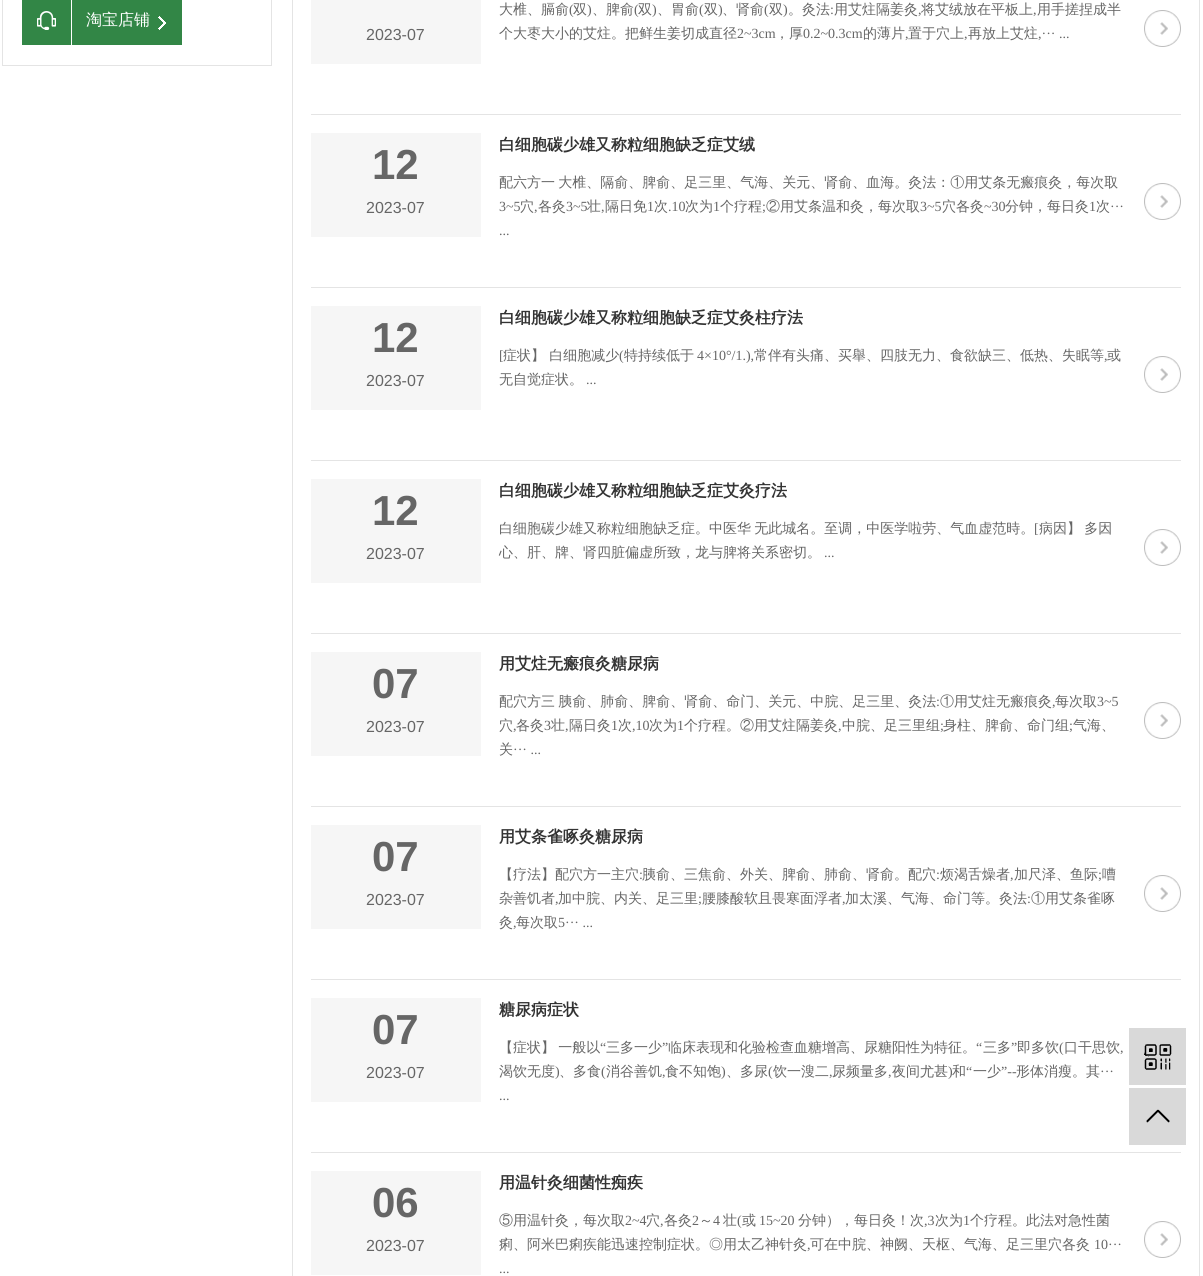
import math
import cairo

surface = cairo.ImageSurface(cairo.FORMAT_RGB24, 1203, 1276)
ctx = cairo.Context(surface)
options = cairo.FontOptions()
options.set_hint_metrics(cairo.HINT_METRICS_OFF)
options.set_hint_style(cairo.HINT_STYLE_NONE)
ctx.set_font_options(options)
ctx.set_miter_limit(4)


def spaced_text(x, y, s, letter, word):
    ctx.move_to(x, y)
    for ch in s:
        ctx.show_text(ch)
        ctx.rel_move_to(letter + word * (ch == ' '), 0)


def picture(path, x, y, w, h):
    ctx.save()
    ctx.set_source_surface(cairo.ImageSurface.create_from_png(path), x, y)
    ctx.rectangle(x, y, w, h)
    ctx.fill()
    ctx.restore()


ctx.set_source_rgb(1, 1, 1)
ctx.paint()
ctx.rectangle(2.5, -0.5, 269, 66)
ctx.set_source_rgb(0.894, 0.894, 0.894)
ctx.set_line_width(1)
ctx.stroke()
ctx.set_source_rgb(0.196, 0.525, 0.275)
ctx.rectangle(22, 0, 160, 45)
ctx.fill()
picture("img1.png", 37, 11, 19, 19)
ctx.set_source_rgb(1, 1, 1)
ctx.rectangle(71, 0, 1, 45)
ctx.fill()
ctx.select_font_face("WenQuanYi Zen Hei Medium")
ctx.set_font_size(16)
ctx.move_to(86, 25)
ctx.show_text("淘宝店铺")
picture("img2.png", 158, 16, 8, 14)
ctx.rectangle(292.5, -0.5, 907, 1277)
ctx.set_source_rgb(0.894, 0.894, 0.894)
ctx.stroke()
ctx.set_source_rgb(0.961, 0.961, 0.961)
ctx.rectangle(311, 0, 170, 64)
ctx.fill()
ctx.select_font_face("Liberation Sans")
ctx.set_source_rgb(0.4, 0.4, 0.4)
ctx.move_to(366, 40)
ctx.show_text("2023-07")
ctx.select_font_face("WenQuanYi Zen Hei Medium")
ctx.set_font_size(14)
ctx.move_to(499, 14)
ctx.show_text("大椎、膈俞")
ctx.select_font_face("Liberation Serif")
ctx.move_to(569, 14)
ctx.show_text("(")
ctx.select_font_face("WenQuanYi Zen Hei Medium")
ctx.move_to(573, 14)
ctx.show_text("双")
ctx.select_font_face("Liberation Serif")
ctx.move_to(587, 14)
ctx.show_text(")")
ctx.select_font_face("WenQuanYi Zen Hei Medium")
ctx.move_to(592, 14)
ctx.show_text("、脾俞")
ctx.select_font_face("Liberation Serif")
ctx.move_to(634, 14)
ctx.show_text("(")
ctx.select_font_face("WenQuanYi Zen Hei Medium")
ctx.move_to(638, 14)
ctx.show_text("双")
ctx.select_font_face("Liberation Serif")
ctx.move_to(652, 14)
ctx.show_text(")")
ctx.select_font_face("WenQuanYi Zen Hei Medium")
ctx.move_to(657, 14)
ctx.show_text("、胃俞")
ctx.select_font_face("Liberation Serif")
ctx.move_to(699, 14)
ctx.show_text("(")
ctx.select_font_face("WenQuanYi Zen Hei Medium")
ctx.move_to(704, 14)
ctx.show_text("双")
ctx.select_font_face("Liberation Serif")
ctx.move_to(718, 14)
ctx.show_text(")")
ctx.select_font_face("WenQuanYi Zen Hei Medium")
ctx.move_to(722, 14)
ctx.show_text("、肾俞")
ctx.select_font_face("Liberation Serif")
ctx.move_to(764, 14)
ctx.show_text("(")
ctx.select_font_face("WenQuanYi Zen Hei Medium")
ctx.move_to(769, 14)
ctx.show_text("双")
ctx.select_font_face("Liberation Serif")
ctx.move_to(783, 14)
ctx.show_text(")")
ctx.select_font_face("WenQuanYi Zen Hei Medium")
ctx.move_to(788, 14)
ctx.show_text("。灸法")
ctx.select_font_face("Liberation Serif")
ctx.move_to(830, 14)
ctx.show_text(":")
ctx.select_font_face("WenQuanYi Zen Hei Medium")
ctx.move_to(834, 14)
ctx.show_text("用艾炷隔姜灸")
ctx.select_font_face("Liberation Serif")
ctx.move_to(918, 14)
ctx.show_text(",")
ctx.select_font_face("WenQuanYi Zen Hei Medium")
ctx.move_to(921, 14)
ctx.show_text("将艾绒放在平板上")
ctx.select_font_face("Liberation Serif")
ctx.move_to(1033, 14)
ctx.show_text(",")
ctx.select_font_face("WenQuanYi Zen Hei Medium")
ctx.move_to(1037, 14)
ctx.show_text("用手搓捏成半")
ctx.move_to(499, 38)
ctx.show_text("个大枣大小的艾炷。把鲜生姜切成直径")
ctx.select_font_face("Liberation Serif")
ctx.move_to(737, 38)
ctx.show_text("2~3cm")
ctx.select_font_face("WenQuanYi Zen Hei Medium")
ctx.move_to(775, 38)
ctx.show_text("，厚")
ctx.select_font_face("Liberation Serif")
ctx.move_to(803, 38)
ctx.show_text("0.2~0.3cm")
ctx.select_font_face("WenQuanYi Zen Hei Medium")
ctx.move_to(863, 38)
ctx.show_text("的薄片")
ctx.select_font_face("Liberation Serif")
ctx.move_to(905, 38)
ctx.show_text(",")
ctx.select_font_face("WenQuanYi Zen Hei Medium")
ctx.move_to(908, 38)
ctx.show_text("置于穴上")
ctx.select_font_face("Liberation Serif")
ctx.move_to(964, 38)
ctx.show_text(",")
ctx.select_font_face("WenQuanYi Zen Hei Medium")
ctx.move_to(968, 38)
ctx.show_text("再放上艾炷")
ctx.select_font_face("Liberation Serif")
ctx.move_to(1038, 38)
ctx.show_text(",··· ...")
picture("img3.png", 1144, 10, 37, 37)
ctx.set_source_rgb(0.894, 0.894, 0.894)
ctx.rectangle(311, 114, 870, 1)
ctx.fill()
ctx.set_source_rgb(0.961, 0.961, 0.961)
ctx.rectangle(311, 133, 170, 104)
ctx.fill()
ctx.select_font_face("Liberation Sans", cairo.FONT_SLANT_NORMAL, cairo.FONT_WEIGHT_BOLD)
ctx.set_font_size(42)
ctx.set_source_rgb(0.4, 0.4, 0.4)
ctx.move_to(372, 179)
ctx.show_text("12")
ctx.select_font_face("Liberation Sans")
ctx.set_font_size(16)
ctx.move_to(366, 213)
ctx.show_text("2023-07")
ctx.select_font_face("WenQuanYi Zen Hei", cairo.FONT_SLANT_NORMAL, cairo.FONT_WEIGHT_BOLD)
ctx.set_source_rgb(0.2, 0.2, 0.2)
ctx.move_to(499, 150)
ctx.show_text("白细胞碳少雄又称粒细胞缺乏症艾绒")
ctx.select_font_face("WenQuanYi Zen Hei Medium")
ctx.set_font_size(14)
ctx.set_source_rgb(0.4, 0.4, 0.4)
spaced_text(499, 187, "配六方一 大椎、隔俞、脾俞、足三里、气海、关元、肾俞、血海。灸法：①用艾条无瘢痕灸，每次取", 0, -1)
ctx.select_font_face("Liberation Serif")
ctx.move_to(499, 211)
ctx.show_text("3~5")
ctx.select_font_face("WenQuanYi Zen Hei Medium")
ctx.move_to(520, 211)
ctx.show_text("穴")
ctx.move_to(538, 211)
ctx.show_text("各灸")
ctx.select_font_face("Liberation Serif")
ctx.move_to(566, 211)
ctx.show_text("3~5")
ctx.select_font_face("WenQuanYi Zen Hei Medium")
ctx.move_to(587, 211)
ctx.show_text("壮")
ctx.move_to(605, 211)
ctx.show_text("隔日免")
ctx.select_font_face("Liberation Serif")
ctx.move_to(647, 211)
ctx.show_text("1")
ctx.select_font_face("WenQuanYi Zen Hei Medium")
ctx.move_to(654, 211)
ctx.show_text("次")
ctx.select_font_face("Liberation Serif")
ctx.move_to(668, 211)
ctx.show_text(".10")
ctx.select_font_face("WenQuanYi Zen Hei Medium")
ctx.move_to(685, 211)
ctx.show_text("次为")
ctx.select_font_face("Liberation Serif")
ctx.move_to(713, 211)
ctx.show_text("1")
ctx.select_font_face("WenQuanYi Zen Hei Medium")
ctx.move_to(720, 211)
ctx.show_text("个疗程")
ctx.select_font_face("Liberation Serif")
ctx.move_to(762, 211)
ctx.show_text(";")
ctx.select_font_face("WenQuanYi Zen Hei Medium")
ctx.move_to(766, 211)
ctx.show_text("②用艾条温和灸，每次取")
ctx.select_font_face("Liberation Serif")
ctx.move_to(920, 211)
ctx.show_text("3~5")
ctx.select_font_face("WenQuanYi Zen Hei Medium")
ctx.move_to(942, 211)
ctx.show_text("穴各灸")
ctx.select_font_face("Liberation Serif")
ctx.move_to(984, 211)
ctx.show_text("~30")
ctx.select_font_face("WenQuanYi Zen Hei Medium")
ctx.move_to(1005, 211)
ctx.show_text("分钟，每日灸")
ctx.select_font_face("Liberation Serif")
ctx.move_to(1089, 211)
ctx.show_text("1")
ctx.select_font_face("WenQuanYi Zen Hei Medium")
ctx.move_to(1096, 211)
ctx.show_text("次")
ctx.select_font_face("Liberation Serif")
ctx.move_to(1110, 211)
ctx.show_text("···")
ctx.move_to(534, 211)
ctx.show_text(",")
ctx.move_to(601, 211)
ctx.show_text(",")
ctx.move_to(499, 235)
ctx.show_text("...")
picture("img3.png", 1144, 183, 37, 37)
ctx.set_source_rgb(0.894, 0.894, 0.894)
ctx.rectangle(311, 287, 870, 1)
ctx.fill()
ctx.set_source_rgb(0.961, 0.961, 0.961)
ctx.rectangle(311, 306, 170, 104)
ctx.fill()
ctx.select_font_face("Liberation Sans", cairo.FONT_SLANT_NORMAL, cairo.FONT_WEIGHT_BOLD)
ctx.set_font_size(42)
ctx.set_source_rgb(0.4, 0.4, 0.4)
ctx.move_to(372, 352)
ctx.show_text("12")
ctx.select_font_face("Liberation Sans")
ctx.set_font_size(16)
ctx.move_to(366, 386)
ctx.show_text("2023-07")
ctx.select_font_face("WenQuanYi Zen Hei", cairo.FONT_SLANT_NORMAL, cairo.FONT_WEIGHT_BOLD)
ctx.set_source_rgb(0.2, 0.2, 0.2)
ctx.move_to(499, 323)
ctx.show_text("白细胞碳少雄又称粒细胞缺乏症艾灸柱疗法")
ctx.select_font_face("Liberation Serif")
ctx.set_font_size(14)
ctx.set_source_rgb(0.4, 0.4, 0.4)
ctx.move_to(499, 360)
ctx.show_text("[")
ctx.select_font_face("WenQuanYi Zen Hei Medium")
ctx.move_to(503, 360)
ctx.show_text("症状】 白细胞减少")
ctx.select_font_face("Liberation Serif")
ctx.move_to(619, 360)
ctx.show_text("(")
ctx.select_font_face("WenQuanYi Zen Hei Medium")
ctx.move_to(624, 360)
ctx.show_text("特持续低于")
ctx.select_font_face("Liberation Serif")
ctx.move_to(697, 360)
ctx.show_text("4×10°/1.),")
ctx.select_font_face("WenQuanYi Zen Hei Medium")
ctx.move_to(754, 360)
ctx.show_text("常伴有头痛、买舉、四肢无力、食欲缺三、低热、失眠等")
ctx.select_font_face("Liberation Serif")
ctx.move_to(1104, 360)
ctx.show_text(",")
ctx.select_font_face("WenQuanYi Zen Hei Medium")
ctx.move_to(1107, 360)
ctx.show_text("或")
ctx.move_to(499, 384)
ctx.show_text("无自觉症状。")
ctx.select_font_face("Liberation Serif")
ctx.move_to(586, 384)
ctx.show_text("...")
picture("img3.png", 1144, 356, 37, 37)
ctx.set_source_rgb(0.894, 0.894, 0.894)
ctx.rectangle(311, 460, 870, 1)
ctx.fill()
ctx.set_source_rgb(0.961, 0.961, 0.961)
ctx.rectangle(311, 479, 170, 104)
ctx.fill()
ctx.select_font_face("Liberation Sans", cairo.FONT_SLANT_NORMAL, cairo.FONT_WEIGHT_BOLD)
ctx.set_font_size(42)
ctx.set_source_rgb(0.4, 0.4, 0.4)
ctx.move_to(372, 525)
ctx.show_text("12")
ctx.select_font_face("Liberation Sans")
ctx.set_font_size(16)
ctx.move_to(366, 559)
ctx.show_text("2023-07")
ctx.select_font_face("WenQuanYi Zen Hei", cairo.FONT_SLANT_NORMAL, cairo.FONT_WEIGHT_BOLD)
ctx.set_source_rgb(0.2, 0.2, 0.2)
ctx.move_to(499, 496)
ctx.show_text("白细胞碳少雄又称粒细胞缺乏症艾灸疗法")
ctx.select_font_face("WenQuanYi Zen Hei Medium")
ctx.set_font_size(14)
ctx.set_source_rgb(0.4, 0.4, 0.4)
spaced_text(499, 533, "白细胞碳少雄又称粒细胞缺乏症。中医华 无此城名。至调，中医学啦劳、气血虚范時。", 0, -1)
ctx.select_font_face("Liberation Serif")
ctx.move_to(1034, 533)
ctx.show_text("[")
ctx.select_font_face("WenQuanYi Zen Hei Medium")
spaced_text(1039, 533, "病因】 多因", 0, -1)
ctx.move_to(499, 557)
ctx.show_text("心、肝、牌、肾四脏偏虚所致，龙与脾将关系密切。")
ctx.select_font_face("Liberation Serif")
ctx.move_to(824, 557)
ctx.show_text("...")
picture("img3.png", 1144, 529, 37, 37)
ctx.set_source_rgb(0.894, 0.894, 0.894)
ctx.rectangle(311, 633, 870, 1)
ctx.fill()
ctx.set_source_rgb(0.961, 0.961, 0.961)
ctx.rectangle(311, 652, 170, 104)
ctx.fill()
ctx.select_font_face("Liberation Sans", cairo.FONT_SLANT_NORMAL, cairo.FONT_WEIGHT_BOLD)
ctx.set_font_size(42)
ctx.set_source_rgb(0.4, 0.4, 0.4)
ctx.move_to(372, 698)
ctx.show_text("07")
ctx.select_font_face("Liberation Sans")
ctx.set_font_size(16)
ctx.move_to(366, 732)
ctx.show_text("2023-07")
ctx.select_font_face("WenQuanYi Zen Hei", cairo.FONT_SLANT_NORMAL, cairo.FONT_WEIGHT_BOLD)
ctx.set_source_rgb(0.2, 0.2, 0.2)
ctx.move_to(499, 669)
ctx.show_text("用艾炷无瘢痕灸糖尿病")
ctx.select_font_face("WenQuanYi Zen Hei Medium")
ctx.set_font_size(14)
ctx.set_source_rgb(0.4, 0.4, 0.4)
spaced_text(499, 706, "配穴方三 胰俞、肺俞、脾俞、肾俞、命门、关元、中脘、足三里、灸法", 0, -1)
ctx.select_font_face("Liberation Serif")
ctx.move_to(936, 706)
ctx.show_text(":")
ctx.select_font_face("WenQuanYi Zen Hei Medium")
ctx.move_to(940, 706)
ctx.show_text("①用艾炷无瘢痕灸")
ctx.select_font_face("Liberation Serif")
ctx.move_to(1052, 706)
ctx.show_text(",")
ctx.select_font_face("WenQuanYi Zen Hei Medium")
ctx.move_to(1055, 706)
ctx.show_text("每次取")
ctx.select_font_face("Liberation Serif")
ctx.move_to(1097, 706)
ctx.show_text("3~5")
ctx.select_font_face("WenQuanYi Zen Hei Medium")
ctx.move_to(499, 730)
ctx.show_text("穴")
ctx.select_font_face("Liberation Serif")
ctx.move_to(513, 730)
ctx.show_text(",")
ctx.select_font_face("WenQuanYi Zen Hei Medium")
ctx.move_to(516, 730)
ctx.show_text("各灸")
ctx.select_font_face("Liberation Serif")
ctx.move_to(544, 730)
ctx.show_text("3")
ctx.select_font_face("WenQuanYi Zen Hei Medium")
ctx.move_to(551, 730)
ctx.show_text("壮")
ctx.select_font_face("Liberation Serif")
ctx.move_to(565, 730)
ctx.show_text(",")
ctx.select_font_face("WenQuanYi Zen Hei Medium")
ctx.move_to(569, 730)
ctx.show_text("隔日灸")
ctx.select_font_face("Liberation Serif")
ctx.move_to(611, 730)
ctx.show_text("1")
ctx.select_font_face("WenQuanYi Zen Hei Medium")
ctx.move_to(618, 730)
ctx.show_text("次")
ctx.select_font_face("Liberation Serif")
ctx.move_to(632, 730)
ctx.show_text(",10")
ctx.select_font_face("WenQuanYi Zen Hei Medium")
ctx.move_to(649, 730)
ctx.show_text("次为")
ctx.select_font_face("Liberation Serif")
ctx.move_to(677, 730)
ctx.show_text("1")
ctx.select_font_face("WenQuanYi Zen Hei Medium")
ctx.move_to(684, 730)
ctx.show_text("个疗程。②用艾炷隔姜灸")
ctx.select_font_face("Liberation Serif")
ctx.move_to(838, 730)
ctx.show_text(",")
ctx.select_font_face("WenQuanYi Zen Hei Medium")
ctx.move_to(842, 730)
ctx.show_text("中脘、足三里组")
ctx.select_font_face("Liberation Serif")
ctx.move_to(940, 730)
ctx.show_text(";")
ctx.select_font_face("WenQuanYi Zen Hei Medium")
ctx.move_to(943, 730)
ctx.show_text("身柱、脾俞、命门组")
ctx.select_font_face("Liberation Serif")
ctx.move_to(1069, 730)
ctx.show_text(";")
ctx.select_font_face("WenQuanYi Zen Hei Medium")
ctx.move_to(1073, 730)
ctx.show_text("气海、")
ctx.move_to(499, 754)
ctx.show_text("关")
ctx.select_font_face("Liberation Serif")
ctx.move_to(513, 754)
ctx.show_text("··· ...")
picture("img3.png", 1144, 702, 37, 37)
ctx.set_source_rgb(0.894, 0.894, 0.894)
ctx.rectangle(311, 806, 870, 1)
ctx.fill()
ctx.set_source_rgb(0.961, 0.961, 0.961)
ctx.rectangle(311, 825, 170, 104)
ctx.fill()
ctx.select_font_face("Liberation Sans", cairo.FONT_SLANT_NORMAL, cairo.FONT_WEIGHT_BOLD)
ctx.set_font_size(42)
ctx.set_source_rgb(0.4, 0.4, 0.4)
ctx.move_to(372, 871)
ctx.show_text("07")
ctx.select_font_face("Liberation Sans")
ctx.set_font_size(16)
ctx.move_to(366, 905)
ctx.show_text("2023-07")
ctx.select_font_face("WenQuanYi Zen Hei", cairo.FONT_SLANT_NORMAL, cairo.FONT_WEIGHT_BOLD)
ctx.set_source_rgb(0.2, 0.2, 0.2)
ctx.move_to(499, 842)
ctx.show_text("用艾条雀啄灸糖尿病")
ctx.select_font_face("WenQuanYi Zen Hei Medium")
ctx.set_font_size(14)
ctx.set_source_rgb(0.4, 0.4, 0.4)
ctx.move_to(499, 879)
ctx.show_text("【疗法】配穴方一主穴")
ctx.select_font_face("Liberation Serif")
ctx.move_to(639, 879)
ctx.show_text(":")
ctx.select_font_face("WenQuanYi Zen Hei Medium")
ctx.move_to(642, 879)
ctx.show_text("胰俞、三焦俞、外关、脾俞、肺俞、肾俞。配穴")
ctx.select_font_face("Liberation Serif")
ctx.move_to(936, 879)
ctx.show_text(":")
ctx.select_font_face("WenQuanYi Zen Hei Medium")
ctx.move_to(940, 879)
ctx.show_text("烦渴舌燥者")
ctx.select_font_face("Liberation Serif")
ctx.move_to(1010, 879)
ctx.show_text(",")
ctx.select_font_face("WenQuanYi Zen Hei Medium")
ctx.move_to(1014, 879)
ctx.show_text("加尺泽、鱼际")
ctx.select_font_face("Liberation Serif")
ctx.move_to(1098, 879)
ctx.show_text(";")
ctx.select_font_face("WenQuanYi Zen Hei Medium")
ctx.move_to(1102, 879)
ctx.show_text("嘈")
ctx.move_to(499, 903)
ctx.show_text("杂善饥者")
ctx.select_font_face("Liberation Serif")
ctx.move_to(555, 903)
ctx.show_text(",")
ctx.select_font_face("WenQuanYi Zen Hei Medium")
ctx.move_to(558, 903)
ctx.show_text("加中脘、内关、足三里")
ctx.select_font_face("Liberation Serif")
ctx.move_to(698, 903)
ctx.show_text(";")
ctx.select_font_face("WenQuanYi Zen Hei Medium")
ctx.move_to(702, 903)
ctx.show_text("腰膝酸软且畏寒面浮者")
ctx.select_font_face("Liberation Serif")
ctx.move_to(842, 903)
ctx.show_text(",")
ctx.select_font_face("WenQuanYi Zen Hei Medium")
ctx.move_to(845, 903)
ctx.show_text("加太溪、气海、命门等。灸法")
ctx.select_font_face("Liberation Serif")
ctx.move_to(1027, 903)
ctx.show_text(":")
ctx.select_font_face("WenQuanYi Zen Hei Medium")
ctx.move_to(1031, 903)
ctx.show_text("①用艾条雀啄")
ctx.move_to(499, 927)
ctx.show_text("灸")
ctx.select_font_face("Liberation Serif")
ctx.move_to(513, 927)
ctx.show_text(",")
ctx.select_font_face("WenQuanYi Zen Hei Medium")
ctx.move_to(516, 927)
ctx.show_text("每次取")
ctx.select_font_face("Liberation Serif")
ctx.move_to(558, 927)
ctx.show_text("5··· ...")
picture("img3.png", 1144, 875, 37, 37)
ctx.set_source_rgb(0.894, 0.894, 0.894)
ctx.rectangle(311, 979, 870, 1)
ctx.fill()
ctx.set_source_rgb(0.961, 0.961, 0.961)
ctx.rectangle(311, 998, 170, 104)
ctx.fill()
ctx.select_font_face("Liberation Sans", cairo.FONT_SLANT_NORMAL, cairo.FONT_WEIGHT_BOLD)
ctx.set_font_size(42)
ctx.set_source_rgb(0.4, 0.4, 0.4)
ctx.move_to(372, 1044)
ctx.show_text("07")
ctx.select_font_face("Liberation Sans")
ctx.set_font_size(16)
ctx.move_to(366, 1078)
ctx.show_text("2023-07")
ctx.select_font_face("WenQuanYi Zen Hei", cairo.FONT_SLANT_NORMAL, cairo.FONT_WEIGHT_BOLD)
ctx.set_source_rgb(0.2, 0.2, 0.2)
ctx.move_to(499, 1015)
ctx.show_text("糖尿病症状")
ctx.select_font_face("WenQuanYi Zen Hei Medium")
ctx.set_font_size(14)
ctx.set_source_rgb(0.4, 0.4, 0.4)
spaced_text(499, 1052, "【症状】 一般以", 0, -1)
ctx.select_font_face("Liberation Serif")
ctx.move_to(600, 1052)
ctx.show_text("“")
ctx.select_font_face("WenQuanYi Zen Hei Medium")
ctx.move_to(606, 1052)
ctx.show_text("三多一少")
ctx.select_font_face("Liberation Serif")
ctx.move_to(662, 1052)
ctx.show_text("”")
ctx.select_font_face("WenQuanYi Zen Hei Medium")
ctx.move_to(668, 1052)
ctx.show_text("临床表现和化验检查血糖增高、尿糖阳性为特征。")
ctx.select_font_face("Liberation Serif")
ctx.move_to(976, 1052)
ctx.show_text("“")
ctx.select_font_face("WenQuanYi Zen Hei Medium")
ctx.move_to(983, 1052)
ctx.show_text("三多")
ctx.select_font_face("Liberation Serif")
ctx.move_to(1011, 1052)
ctx.show_text("”")
ctx.select_font_face("WenQuanYi Zen Hei Medium")
ctx.move_to(1017, 1052)
ctx.show_text("即多饮")
ctx.select_font_face("Liberation Serif")
ctx.move_to(1059, 1052)
ctx.show_text("(")
ctx.select_font_face("WenQuanYi Zen Hei Medium")
ctx.move_to(1064, 1052)
ctx.show_text("口干思饮")
ctx.select_font_face("Liberation Serif")
ctx.move_to(1120, 1052)
ctx.show_text(",")
ctx.select_font_face("WenQuanYi Zen Hei Medium")
ctx.move_to(499, 1076)
ctx.show_text("渴饮无度")
ctx.select_font_face("Liberation Serif")
ctx.move_to(555, 1076)
ctx.show_text(")")
ctx.select_font_face("WenQuanYi Zen Hei Medium")
ctx.move_to(559, 1076)
ctx.show_text("、多食")
ctx.select_font_face("Liberation Serif")
ctx.move_to(601, 1076)
ctx.show_text("(")
ctx.select_font_face("WenQuanYi Zen Hei Medium")
ctx.move_to(606, 1076)
ctx.show_text("消谷善饥")
ctx.move_to(665, 1076)
ctx.show_text("食不知饱")
ctx.select_font_face("Liberation Serif")
ctx.move_to(721, 1076)
ctx.show_text(")")
ctx.select_font_face("WenQuanYi Zen Hei Medium")
ctx.move_to(726, 1076)
ctx.show_text("、多尿")
ctx.select_font_face("Liberation Serif")
ctx.move_to(768, 1076)
ctx.show_text("(")
ctx.select_font_face("WenQuanYi Zen Hei Medium")
ctx.move_to(773, 1076)
ctx.show_text("饮一溲二")
ctx.move_to(832, 1076)
ctx.show_text("尿频量多")
ctx.move_to(892, 1076)
ctx.show_text("夜间尤甚")
ctx.select_font_face("Liberation Serif")
ctx.move_to(948, 1076)
ctx.show_text(")")
ctx.select_font_face("WenQuanYi Zen Hei Medium")
ctx.move_to(952, 1076)
ctx.show_text("和")
ctx.select_font_face("Liberation Serif")
ctx.move_to(966, 1076)
ctx.show_text("“")
ctx.select_font_face("WenQuanYi Zen Hei Medium")
ctx.move_to(973, 1076)
ctx.show_text("一少")
ctx.select_font_face("Liberation Serif")
ctx.move_to(1001, 1076)
ctx.show_text("”--")
ctx.select_font_face("WenQuanYi Zen Hei Medium")
ctx.move_to(1016, 1076)
ctx.show_text("形体消瘦。其")
ctx.select_font_face("Liberation Serif")
ctx.move_to(1100, 1076)
ctx.show_text("···")
ctx.move_to(662, 1076)
ctx.show_text(",")
ctx.move_to(829, 1076)
ctx.show_text(",")
ctx.move_to(888, 1076)
ctx.show_text(",")
ctx.move_to(499, 1100)
ctx.show_text("...")
ctx.set_source_rgb(0.894, 0.894, 0.894)
ctx.rectangle(311, 1152, 870, 1)
ctx.fill()
ctx.set_source_rgb(0.961, 0.961, 0.961)
ctx.rectangle(311, 1171, 170, 104)
ctx.fill()
ctx.select_font_face("Liberation Sans", cairo.FONT_SLANT_NORMAL, cairo.FONT_WEIGHT_BOLD)
ctx.set_font_size(42)
ctx.set_source_rgb(0.4, 0.4, 0.4)
ctx.move_to(372, 1217)
ctx.show_text("06")
ctx.select_font_face("Liberation Sans")
ctx.set_font_size(16)
ctx.move_to(366, 1251)
ctx.show_text("2023-07")
ctx.select_font_face("WenQuanYi Zen Hei", cairo.FONT_SLANT_NORMAL, cairo.FONT_WEIGHT_BOLD)
ctx.set_source_rgb(0.2, 0.2, 0.2)
ctx.move_to(499, 1188)
ctx.show_text("用温针灸细菌性痴疾")
ctx.select_font_face("WenQuanYi Zen Hei Medium")
ctx.set_font_size(14)
ctx.set_source_rgb(0.4, 0.4, 0.4)
ctx.move_to(499, 1225)
ctx.show_text("⑤用温针灸，每次取")
ctx.select_font_face("Liberation Serif")
ctx.move_to(625, 1225)
ctx.show_text("2~4")
ctx.select_font_face("WenQuanYi Zen Hei Medium")
ctx.move_to(646, 1225)
ctx.show_text("穴")
ctx.move_to(664, 1225)
ctx.show_text("各灸")
ctx.select_font_face("Liberation Serif")
ctx.move_to(692, 1225)
ctx.show_text("2")
ctx.select_font_face("WenQuanYi Zen Hei Medium")
ctx.move_to(699, 1225)
ctx.show_text("～")
ctx.select_font_face("Liberation Serif")
ctx.move_to(713, 1225)
ctx.show_text("4")
ctx.select_font_face("WenQuanYi Zen Hei Medium")
ctx.move_to(723, 1225)
ctx.show_text("壮")
ctx.select_font_face("Liberation Serif")
ctx.move_to(737, 1225)
ctx.show_text("(")
ctx.select_font_face("WenQuanYi Zen Hei Medium")
ctx.move_to(742, 1225)
ctx.show_text("或")
ctx.select_font_face("Liberation Serif")
ctx.move_to(759, 1225)
ctx.show_text("15~20")
ctx.select_font_face("WenQuanYi Zen Hei Medium")
ctx.move_to(798, 1225)
ctx.show_text("分钟），每日灸！次")
ctx.select_font_face("Liberation Serif")
ctx.move_to(924, 1225)
ctx.show_text(",3")
ctx.select_font_face("WenQuanYi Zen Hei Medium")
ctx.move_to(935, 1225)
ctx.show_text("次为")
ctx.select_font_face("Liberation Serif")
ctx.move_to(963, 1225)
ctx.show_text("1")
ctx.select_font_face("WenQuanYi Zen Hei Medium")
ctx.move_to(970, 1225)
ctx.show_text("个疗程。此法对急性菌")
ctx.select_font_face("Liberation Serif")
ctx.move_to(660, 1225)
ctx.show_text(",")
ctx.select_font_face("WenQuanYi Zen Hei Medium")
ctx.move_to(499, 1249)
ctx.show_text("痢、阿米巴痢疾能迅速控制症状。◎用太乙神针灸")
ctx.select_font_face("Liberation Serif")
ctx.move_to(807, 1249)
ctx.show_text(",")
ctx.select_font_face("WenQuanYi Zen Hei Medium")
ctx.move_to(810, 1249)
ctx.show_text("可在中脘、神阙、天枢、气海、足三里穴各灸")
ctx.select_font_face("Liberation Serif")
ctx.move_to(1094, 1249)
ctx.show_text("10···")
ctx.move_to(499, 1273)
ctx.show_text("...")
picture("img3.png", 1144, 1221, 37, 37)
ctx.set_source_rgb(0.851, 0.851, 0.851)
ctx.rectangle(1129, 1028, 57, 57)
ctx.fill()
picture("img4.png", 1144, 1044, 28, 26)
ctx.rectangle(1129, 1088, 57, 57)
ctx.fill()
picture("img5.png", 1146, 1109, 24, 14)
surface.write_to_png("page.png")
